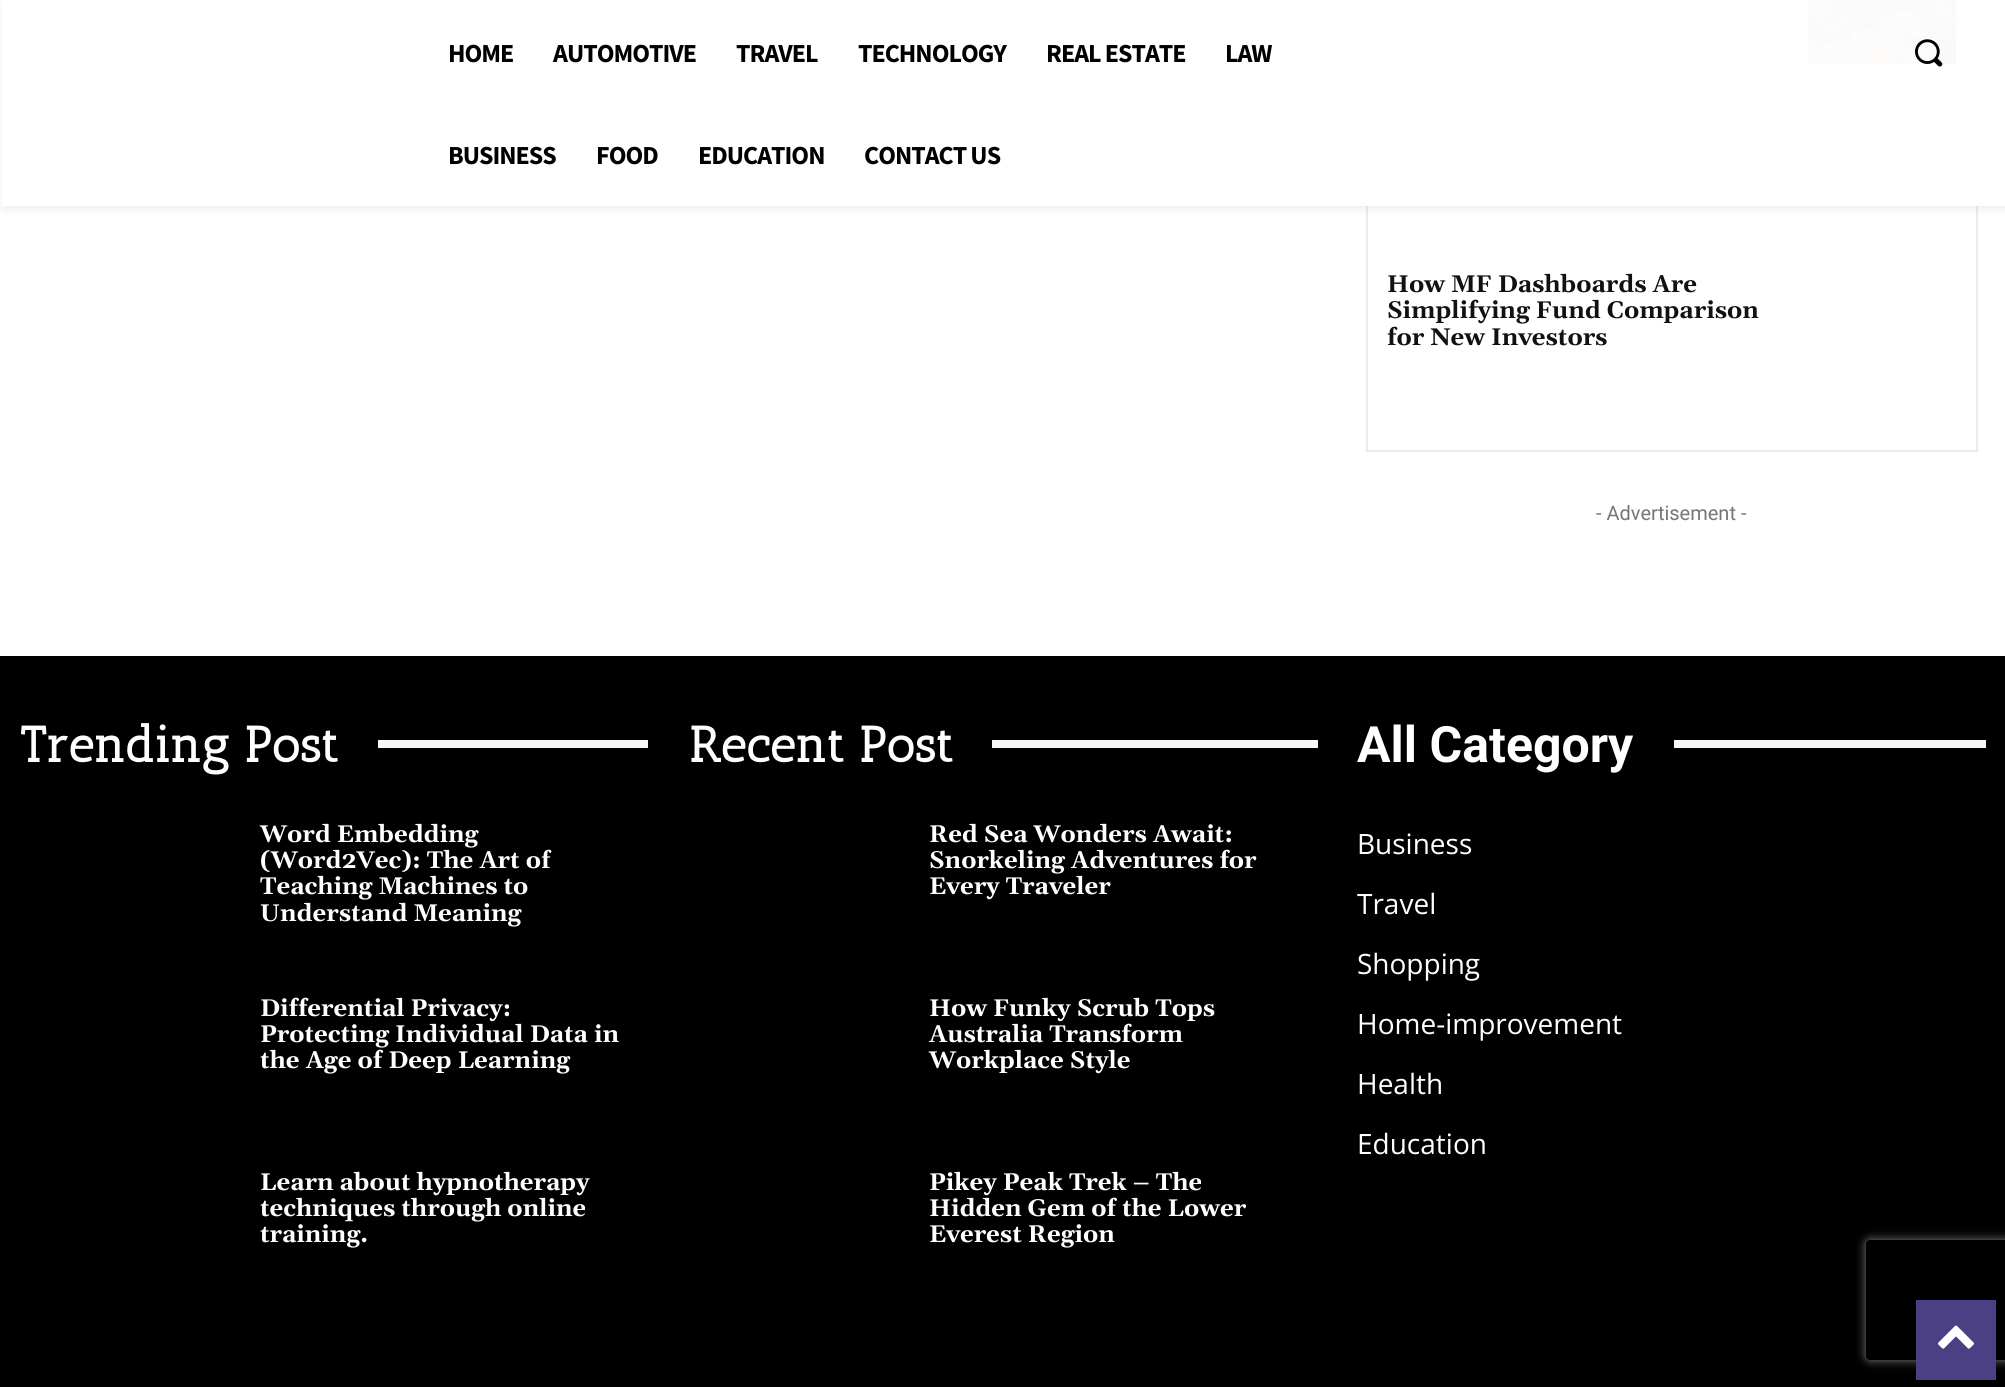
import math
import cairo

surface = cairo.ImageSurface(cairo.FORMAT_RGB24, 2005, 1387)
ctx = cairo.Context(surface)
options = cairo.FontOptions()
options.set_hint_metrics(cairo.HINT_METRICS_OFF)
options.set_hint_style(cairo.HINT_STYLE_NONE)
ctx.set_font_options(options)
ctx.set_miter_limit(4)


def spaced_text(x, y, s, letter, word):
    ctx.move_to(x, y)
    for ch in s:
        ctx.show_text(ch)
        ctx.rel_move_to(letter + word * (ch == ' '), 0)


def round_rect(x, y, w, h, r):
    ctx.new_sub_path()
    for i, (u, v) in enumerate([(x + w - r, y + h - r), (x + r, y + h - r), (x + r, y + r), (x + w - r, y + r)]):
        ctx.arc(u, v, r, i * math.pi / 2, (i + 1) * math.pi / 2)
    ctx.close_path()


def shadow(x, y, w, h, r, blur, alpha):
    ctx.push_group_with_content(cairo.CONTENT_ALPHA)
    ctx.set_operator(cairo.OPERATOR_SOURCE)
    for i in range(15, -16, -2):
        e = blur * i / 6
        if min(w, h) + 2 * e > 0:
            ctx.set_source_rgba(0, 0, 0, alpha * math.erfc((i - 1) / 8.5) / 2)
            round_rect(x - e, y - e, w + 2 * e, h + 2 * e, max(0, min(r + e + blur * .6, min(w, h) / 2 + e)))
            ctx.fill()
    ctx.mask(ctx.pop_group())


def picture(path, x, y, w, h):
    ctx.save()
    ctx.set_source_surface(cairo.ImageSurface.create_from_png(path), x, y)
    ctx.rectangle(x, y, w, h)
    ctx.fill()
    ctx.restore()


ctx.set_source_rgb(1, 1, 1)
ctx.paint()
ctx.rectangle(1367, -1, 610, 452)
ctx.set_source_rgb(0.918, 0.918, 0.918)
ctx.stroke()
picture("img2.png", 1808, 0, 148, 64)
ctx.set_source_rgba(1, 1, 1, 0.97)
ctx.rectangle(1366, 0, 612, 206)
ctx.fill()
ctx.save()
ctx.set_fill_rule(cairo.FILL_RULE_EVEN_ODD)
ctx.new_path()
ctx.move_to(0, 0)
ctx.line_to(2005, 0)
ctx.line_to(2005, 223)
ctx.line_to(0, 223)
ctx.close_path()
ctx.move_to(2, 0)
ctx.line_to(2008, 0)
ctx.line_to(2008, 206)
ctx.line_to(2, 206)
ctx.close_path()
ctx.clip()
ctx.set_source_rgb(0, 0, 0)
shadow(2, 4, 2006, 206, 0, 4, 0.06)
ctx.restore()
ctx.select_font_face("Source Sans Pro", cairo.FONT_SLANT_NORMAL, cairo.FONT_WEIGHT_BOLD)
ctx.set_font_size(26)
ctx.set_source_rgb(0, 0, 0)
spaced_text(448, 62, "HOME", -1, 0)
spaced_text(553, 62, "AUTOMOTIVE", -1, 0)
spaced_text(736, 62, "TRAVEL", -1, 0)
spaced_text(858, 62, "TECHNOLOGY", -1, 0)
spaced_text(1046, 62, "REAL ESTATE", -1, 0)
spaced_text(1225, 62, "LAW", -1, 0)
spaced_text(448, 164, "BUSINESS", -1, 0)
spaced_text(596, 164, "FOOD", -1, 0)
spaced_text(698, 164, "EDUCATION", -1, 0)
spaced_text(864, 164, "CONTACT US", -1, 0)
picture("img1.png", 1915, 39, 28, 28)
ctx.select_font_face("Gelasio", cairo.FONT_SLANT_NORMAL, cairo.FONT_WEIGHT_BOLD)
ctx.set_font_size(24)
ctx.set_source_rgb(0.067, 0.067, 0.067)
ctx.move_to(1387, 292)
ctx.show_text("How MF Dashboards Are")
ctx.move_to(1387, 318)
ctx.show_text("Simplifying Fund Comparison")
ctx.move_to(1387, 345)
ctx.show_text("for New Investors")
ctx.select_font_face("Roboto")
ctx.set_font_size(20)
ctx.set_source_rgb(0.463, 0.463, 0.463)
ctx.move_to(1596, 520)
ctx.show_text("- Advertisement -")
ctx.set_source_rgb(0, 0, 0)
ctx.rectangle(0, 656, 2005, 731)
ctx.fill()
ctx.select_font_face("Antic Slab", cairo.FONT_SLANT_NORMAL, cairo.FONT_WEIGHT_BOLD)
ctx.set_font_size(50)
ctx.set_source_rgb(1, 1, 1)
ctx.move_to(20, 762)
ctx.show_text("Trending Post")
ctx.set_source_rgb(0.961, 0.961, 0.961)
ctx.rectangle(378, 740, 270, 8)
ctx.fill()
ctx.select_font_face("Gelasio", cairo.FONT_SLANT_NORMAL, cairo.FONT_WEIGHT_BOLD)
ctx.set_font_size(24)
ctx.set_source_rgb(1, 1, 1)
ctx.move_to(260, 842)
ctx.show_text("Word Embedding")
ctx.move_to(260, 868)
ctx.show_text("(Word2Vec): The Art of")
ctx.move_to(260, 894)
ctx.show_text("Teaching Machines to")
ctx.move_to(260, 921)
ctx.show_text("Understand Meaning")
ctx.move_to(260, 1016)
ctx.show_text("Differential Privacy:")
ctx.move_to(260, 1042)
ctx.show_text("Protecting Individual Data in")
ctx.move_to(260, 1068)
ctx.show_text("the Age of Deep Learning")
ctx.move_to(260, 1190)
ctx.show_text("Learn about hypnotherapy")
ctx.move_to(260, 1216)
ctx.show_text("techniques through online")
ctx.move_to(260, 1242)
ctx.show_text("training.")
ctx.select_font_face("Antic Slab", cairo.FONT_SLANT_NORMAL, cairo.FONT_WEIGHT_BOLD)
ctx.set_font_size(50)
ctx.move_to(689, 762)
ctx.show_text("Recent Post")
ctx.set_source_rgb(0.961, 0.961, 0.961)
ctx.rectangle(992, 740, 326, 8)
ctx.fill()
ctx.select_font_face("Gelasio", cairo.FONT_SLANT_NORMAL, cairo.FONT_WEIGHT_BOLD)
ctx.set_font_size(24)
ctx.set_source_rgb(1, 1, 1)
ctx.move_to(929, 842)
ctx.show_text("Red Sea Wonders Await:")
ctx.move_to(929, 868)
ctx.show_text("Snorkeling Adventures for")
ctx.move_to(929, 894)
ctx.show_text("Every Traveler")
ctx.move_to(929, 1016)
ctx.show_text("How Funky Scrub Tops")
ctx.move_to(929, 1042)
ctx.show_text("Australia Transform")
ctx.move_to(929, 1068)
ctx.show_text("Workplace Style")
ctx.move_to(929, 1190)
ctx.show_text("Pikey Peak Trek – The")
ctx.move_to(929, 1216)
ctx.show_text("Hidden Gem of the Lower")
ctx.move_to(929, 1242)
ctx.show_text("Everest Region")
ctx.select_font_face("Roboto", cairo.FONT_SLANT_NORMAL, cairo.FONT_WEIGHT_BOLD)
ctx.set_font_size(50)
ctx.move_to(1357, 762)
ctx.show_text("All Category")
ctx.set_source_rgb(0.961, 0.961, 0.961)
ctx.rectangle(1674, 740, 312, 8)
ctx.fill()
ctx.select_font_face("Open Sans")
ctx.set_font_size(28)
ctx.set_source_rgb(1, 1, 1)
ctx.move_to(1357, 854)
ctx.show_text("Business")
ctx.move_to(1357, 914)
ctx.show_text("Travel")
ctx.move_to(1357, 974)
ctx.show_text("Shopping")
ctx.move_to(1357, 1034)
ctx.show_text("Home-improvement")
ctx.move_to(1357, 1094)
ctx.show_text("Health")
ctx.move_to(1357, 1154)
ctx.show_text("Education")
ctx.save()
ctx.set_fill_rule(cairo.FILL_RULE_EVEN_ODD)
ctx.new_path()
ctx.move_to(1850, 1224)
ctx.line_to(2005, 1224)
ctx.line_to(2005, 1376)
ctx.line_to(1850, 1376)
ctx.close_path()
ctx.move_to(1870, 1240)
ctx.line_to(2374, 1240)
ctx.curve_to(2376, 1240, 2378, 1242, 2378, 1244)
ctx.line_to(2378, 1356)
ctx.curve_to(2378, 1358, 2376, 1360, 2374, 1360)
ctx.line_to(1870, 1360)
ctx.curve_to(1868, 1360, 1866, 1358, 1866, 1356)
ctx.line_to(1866, 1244)
ctx.curve_to(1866, 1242, 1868, 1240, 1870, 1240)
ctx.close_path()
ctx.clip()
ctx.set_source_rgb(0.502, 0.502, 0.502)
shadow(1866, 1240, 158, 120, 4, 5, 1)
ctx.restore()
ctx.set_source_rgb(0.298, 0.251, 0.518)
ctx.rectangle(1916, 1300, 80, 80)
ctx.fill()
picture("img3.png", 1938, 1325, 36, 24)
surface.write_to_png("page.png")
